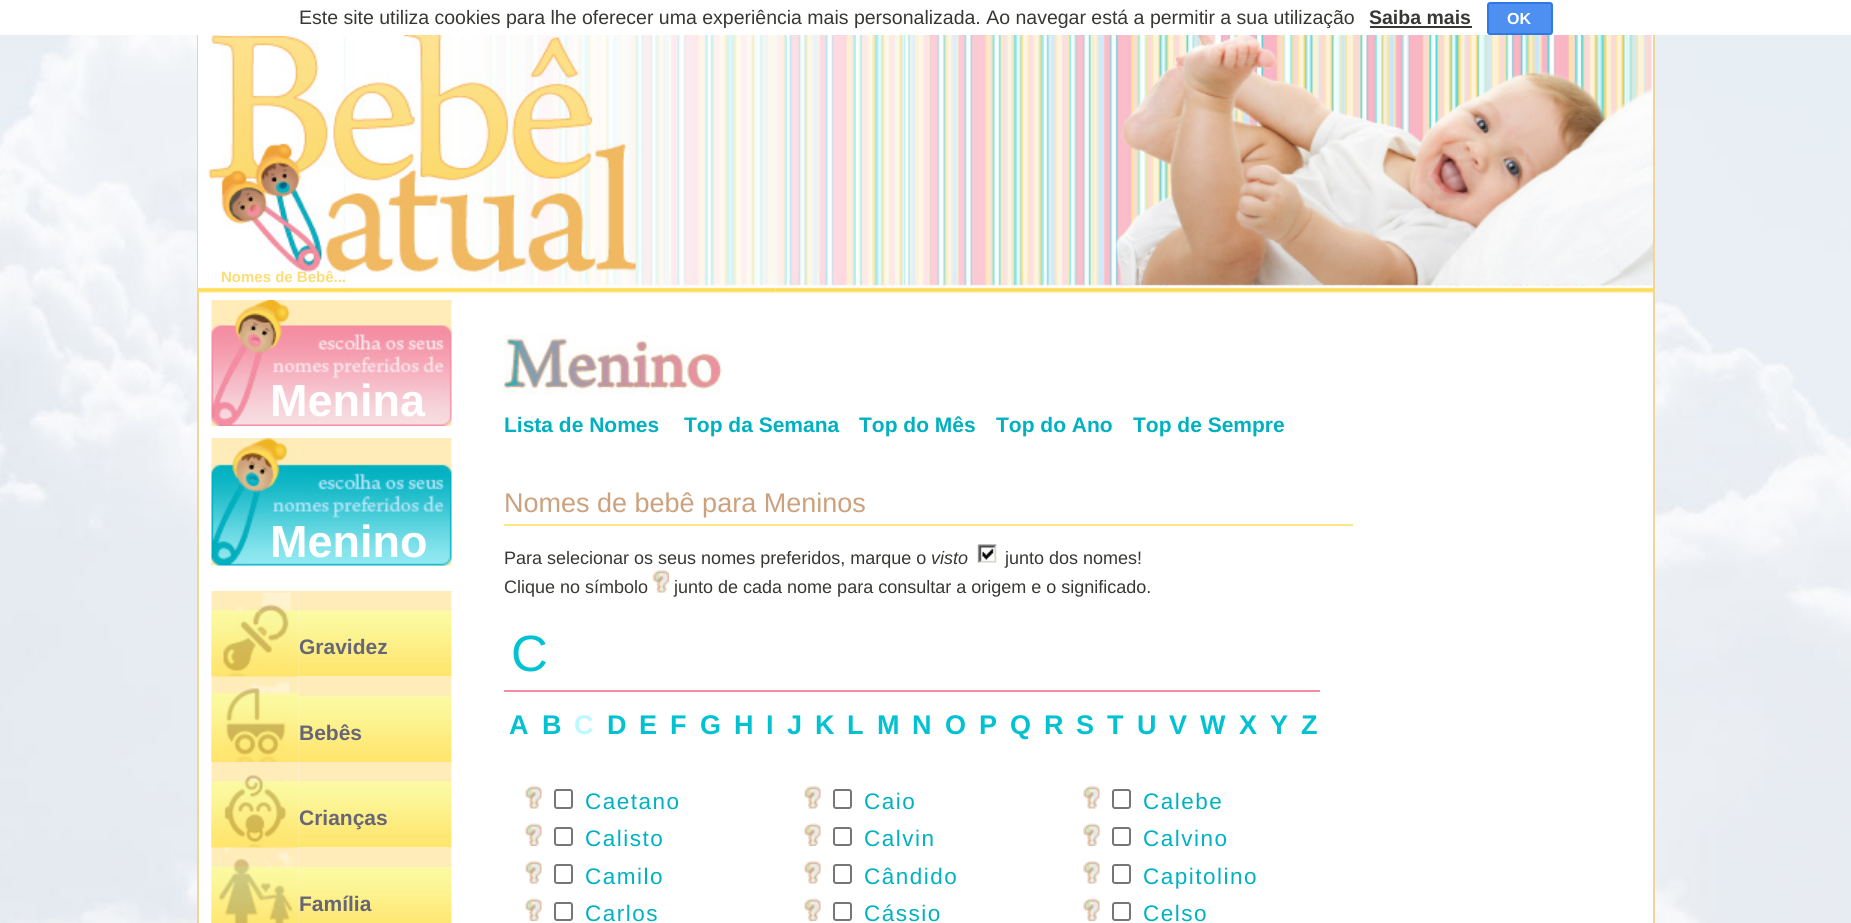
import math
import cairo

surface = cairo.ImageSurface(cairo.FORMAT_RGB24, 1851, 923)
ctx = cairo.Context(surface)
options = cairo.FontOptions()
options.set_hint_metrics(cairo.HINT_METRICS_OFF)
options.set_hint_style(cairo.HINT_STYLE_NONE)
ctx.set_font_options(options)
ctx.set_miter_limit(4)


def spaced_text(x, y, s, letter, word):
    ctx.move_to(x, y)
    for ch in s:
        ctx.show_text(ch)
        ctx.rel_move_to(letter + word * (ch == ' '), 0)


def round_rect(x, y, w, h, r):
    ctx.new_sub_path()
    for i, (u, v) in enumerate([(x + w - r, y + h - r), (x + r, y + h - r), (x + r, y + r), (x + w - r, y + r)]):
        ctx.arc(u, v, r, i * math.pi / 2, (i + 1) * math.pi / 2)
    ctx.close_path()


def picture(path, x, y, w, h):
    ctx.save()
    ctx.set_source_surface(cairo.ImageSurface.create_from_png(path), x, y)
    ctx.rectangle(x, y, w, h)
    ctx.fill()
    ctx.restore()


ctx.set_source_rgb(1, 1, 1)
ctx.paint()
picture("img1.png", 0, 35, 1851, 888)
ctx.select_font_face("Liberation Sans")
ctx.set_font_size(19.5)
ctx.set_source_rgb(0.216, 0.216, 0.204)
ctx.move_to(299, 24)
ctx.show_text("Este site utiliza cookies para lhe oferecer uma experiência mais personalizada. Ao navegar está a permitir a sua utilização")
ctx.select_font_face("Liberation Sans", cairo.FONT_SLANT_NORMAL, cairo.FONT_WEIGHT_BOLD)
ctx.move_to(1369, 24)
ctx.show_text("Saiba mais")
ctx.rectangle(1370, 26, 102, 2)
ctx.fill()
ctx.set_source_rgb(0.302, 0.565, 0.945)
round_rect(1488, 3, 64, 31, 2)
ctx.fill_preserve()
ctx.set_source_rgb(0.188, 0.475, 0.882)
ctx.stroke()
ctx.set_font_size(16)
ctx.set_source_rgb(1, 1, 1)
ctx.move_to(1507, 24)
ctx.show_text("OK")
ctx.rectangle(199, 35, 577, 258)
ctx.fill()
ctx.set_source_rgb(0.929, 0.839, 0.588)
ctx.rectangle(197, 35, 2, 888)
ctx.fill()
ctx.set_source_rgb(1, 1, 1)
ctx.rectangle(776, 292, 877, 1)
ctx.fill()
picture("img3.png", 775, 35, 155, 258)
picture("img2.png", 198, 35, 578, 258)
picture("img4.png", 930, 35, 723, 258)
ctx.set_source_rgb(0.929, 0.839, 0.588)
ctx.rectangle(1653, 35, 2, 888)
ctx.fill()
picture("img5.png", 1116, 35, 537, 251)
ctx.set_source_rgb(1, 1, 1)
ctx.rectangle(199, 293, 1454, 630)
ctx.fill()
ctx.set_font_size(15)
ctx.set_source_rgb(0.992, 0.863, 0.459)
ctx.move_to(221, 282)
ctx.show_text("Nomes de Bebê...")
picture("img6.png", 211, 300, 241, 126)
ctx.set_font_size(45)
ctx.set_source_rgb(1, 1, 1)
ctx.move_to(270, 416)
ctx.show_text("Menina")
picture("img7.png", 211, 438, 241, 128)
ctx.move_to(270, 557)
ctx.show_text("Menino")
picture("img8.png", 211, 591, 88, 86)
picture("img10.png", 298, 591, 154, 86)
picture("img11.png", 211, 676, 88, 86)
picture("img13.png", 298, 676, 154, 86)
picture("img9.png", 211, 592, 88, 85)
ctx.set_font_size(21)
ctx.set_source_rgb(0.4, 0.4, 0.467)
ctx.move_to(299, 654)
ctx.show_text("Gravidez")
picture("img12.png", 211, 681, 88, 81)
ctx.move_to(299, 740)
ctx.show_text("Bebês")
picture("img14.png", 211, 762, 88, 86)
picture("img16.png", 298, 762, 154, 86)
picture("img17.png", 211, 847, 88, 76)
picture("img19.png", 298, 847, 154, 76)
picture("img15.png", 211, 770, 88, 78)
ctx.move_to(299, 825)
ctx.show_text("Crianças")
picture("img18.png", 211, 847, 88, 76)
ctx.move_to(299, 911)
ctx.show_text("Família")
picture("img20.png", 504, 334, 219, 61)
ctx.set_source_rgb(0, 0.694, 0.757)
ctx.move_to(504, 432)
ctx.show_text("Lista de Nomes")
ctx.move_to(684, 432)
ctx.show_text("Top da Semana")
ctx.move_to(859, 432)
ctx.show_text("Top do Mês")
ctx.move_to(996, 432)
ctx.show_text("Top do Ano")
ctx.move_to(1133, 432)
ctx.show_text("Top de Sempre")
ctx.set_source_rgb(1, 0.898, 0.518)
ctx.rectangle(504, 524, 849, 2)
ctx.fill()
ctx.select_font_face("Liberation Sans")
ctx.set_font_size(27)
ctx.set_source_rgb(0.8, 0.631, 0.49)
ctx.move_to(504, 512)
ctx.show_text("Nomes de bebê para Meninos")
ctx.set_font_size(18)
ctx.set_source_rgb(0.216, 0.216, 0.204)
ctx.move_to(504, 564)
ctx.show_text("Para selecionar os seus nomes preferidos, marque o")
ctx.select_font_face("Liberation Sans", cairo.FONT_SLANT_ITALIC)
ctx.move_to(931, 564)
ctx.show_text("visto")
picture("img21.png", 977, 544, 20, 19)
ctx.select_font_face("Liberation Sans")
ctx.move_to(1005, 564)
ctx.show_text("junto dos nomes!")
ctx.move_to(504, 593)
ctx.show_text("Clique no símbolo")
picture("img22.png", 652, 570, 17, 23)
ctx.move_to(674, 593)
ctx.show_text("junto de cada nome para consultar a origem e o significado.")
ctx.set_source_rgb(0.961, 0.557, 0.639)
ctx.rectangle(504, 690, 816, 2)
ctx.fill()
ctx.set_font_size(51)
ctx.set_source_rgb(0.008, 0.761, 0.824)
spaced_text(511, 671, "C", 1.5, 0)
ctx.select_font_face("Liberation Sans", cairo.FONT_SLANT_NORMAL, cairo.FONT_WEIGHT_BOLD)
ctx.set_font_size(27)
ctx.move_to(509, 734)
ctx.show_text("A")
ctx.move_to(542, 734)
ctx.show_text("B")
ctx.set_source_rgb(0.737, 0.976, 0.996)
ctx.move_to(574, 734)
ctx.show_text("C")
ctx.set_source_rgb(0.008, 0.761, 0.824)
ctx.move_to(607, 734)
ctx.show_text("D")
ctx.move_to(639, 734)
ctx.show_text("E")
ctx.move_to(670, 734)
ctx.show_text("F")
ctx.move_to(700, 734)
ctx.show_text("G")
ctx.move_to(734, 734)
ctx.show_text("H")
ctx.move_to(766, 734)
ctx.show_text("I")
ctx.move_to(787, 734)
ctx.show_text("J")
ctx.move_to(815, 734)
ctx.show_text("K")
ctx.move_to(847, 734)
ctx.show_text("L")
ctx.move_to(877, 734)
ctx.show_text("M")
ctx.move_to(912, 734)
ctx.show_text("N")
ctx.move_to(945, 734)
ctx.show_text("O")
ctx.move_to(979, 734)
ctx.show_text("P")
ctx.move_to(1010, 734)
ctx.show_text("Q")
ctx.move_to(1044, 734)
ctx.show_text("R")
ctx.move_to(1076, 734)
ctx.show_text("S")
ctx.move_to(1107, 734)
ctx.show_text("T")
ctx.move_to(1137, 734)
ctx.show_text("U")
ctx.move_to(1169, 734)
ctx.show_text("V")
ctx.move_to(1200, 734)
ctx.show_text("W")
ctx.move_to(1239, 734)
ctx.show_text("X")
ctx.move_to(1270, 734)
ctx.show_text("Y")
ctx.move_to(1301, 734)
ctx.show_text("Z")
picture("img23.png", 525, 786, 17, 23)
round_rect(555, 790, 17, 18, 2)
ctx.set_source_rgb(0.463, 0.463, 0.463)
ctx.stroke()
ctx.select_font_face("Liberation Sans")
ctx.set_font_size(22.5)
ctx.set_source_rgb(0, 0.694, 0.757)
spaced_text(585, 809, "Caetano", 1.5, 0)
picture("img24.png", 804, 786, 17, 23)
round_rect(834, 790, 17, 18, 2)
ctx.set_source_rgb(0.463, 0.463, 0.463)
ctx.stroke()
ctx.set_source_rgb(0, 0.694, 0.757)
spaced_text(864, 809, "Caio", 1.5, 0)
picture("img23.png", 1083, 786, 17, 23)
round_rect(1113, 790, 17, 18, 2)
ctx.set_source_rgb(0.463, 0.463, 0.463)
ctx.stroke()
ctx.set_source_rgb(0, 0.694, 0.757)
spaced_text(1143, 809, "Calebe", 1.5, 0)
picture("img25.png", 525, 823, 17, 23)
round_rect(555, 828, 17, 17, 2)
ctx.set_source_rgb(0.463, 0.463, 0.463)
ctx.stroke()
ctx.set_source_rgb(0, 0.694, 0.757)
spaced_text(585, 846, "Calisto", 1.5, 0)
picture("img26.png", 804, 823, 17, 23)
round_rect(834, 828, 17, 17, 2)
ctx.set_source_rgb(0.463, 0.463, 0.463)
ctx.stroke()
ctx.set_source_rgb(0, 0.694, 0.757)
spaced_text(864, 846, "Calvin", 1.5, 0)
picture("img25.png", 1083, 823, 17, 23)
round_rect(1113, 828, 17, 17, 2)
ctx.set_source_rgb(0.463, 0.463, 0.463)
ctx.stroke()
ctx.set_source_rgb(0, 0.694, 0.757)
spaced_text(1143, 846, "Calvino", 1.5, 0)
picture("img23.png", 525, 861, 17, 23)
round_rect(555, 865, 17, 18, 2)
ctx.set_source_rgb(0.463, 0.463, 0.463)
ctx.stroke()
ctx.set_source_rgb(0, 0.694, 0.757)
spaced_text(585, 884, "Camilo", 1.5, 0)
picture("img24.png", 804, 861, 17, 23)
round_rect(834, 865, 17, 18, 2)
ctx.set_source_rgb(0.463, 0.463, 0.463)
ctx.stroke()
ctx.set_source_rgb(0, 0.694, 0.757)
spaced_text(864, 884, "Cândido", 1.5, 0)
picture("img23.png", 1083, 861, 17, 23)
round_rect(1113, 865, 17, 18, 2)
ctx.set_source_rgb(0.463, 0.463, 0.463)
ctx.stroke()
ctx.set_source_rgb(0, 0.694, 0.757)
spaced_text(1143, 884, "Capitolino", 1.5, 0)
picture("img25.png", 525, 898, 17, 23)
round_rect(555, 903, 17, 17, 2)
ctx.set_source_rgb(0.463, 0.463, 0.463)
ctx.stroke()
ctx.set_source_rgb(0, 0.694, 0.757)
spaced_text(585, 921, "Carlos", 1.5, 0)
picture("img26.png", 804, 898, 17, 23)
round_rect(834, 903, 17, 17, 2)
ctx.set_source_rgb(0.463, 0.463, 0.463)
ctx.stroke()
ctx.set_source_rgb(0, 0.694, 0.757)
spaced_text(864, 921, "Cássio", 1.5, 0)
picture("img25.png", 1083, 898, 17, 23)
round_rect(1113, 903, 17, 17, 2)
ctx.set_source_rgb(0.463, 0.463, 0.463)
ctx.stroke()
ctx.set_source_rgb(0, 0.694, 0.757)
spaced_text(1143, 921, "Celso", 1.5, 0)
surface.write_to_png("page.png")
